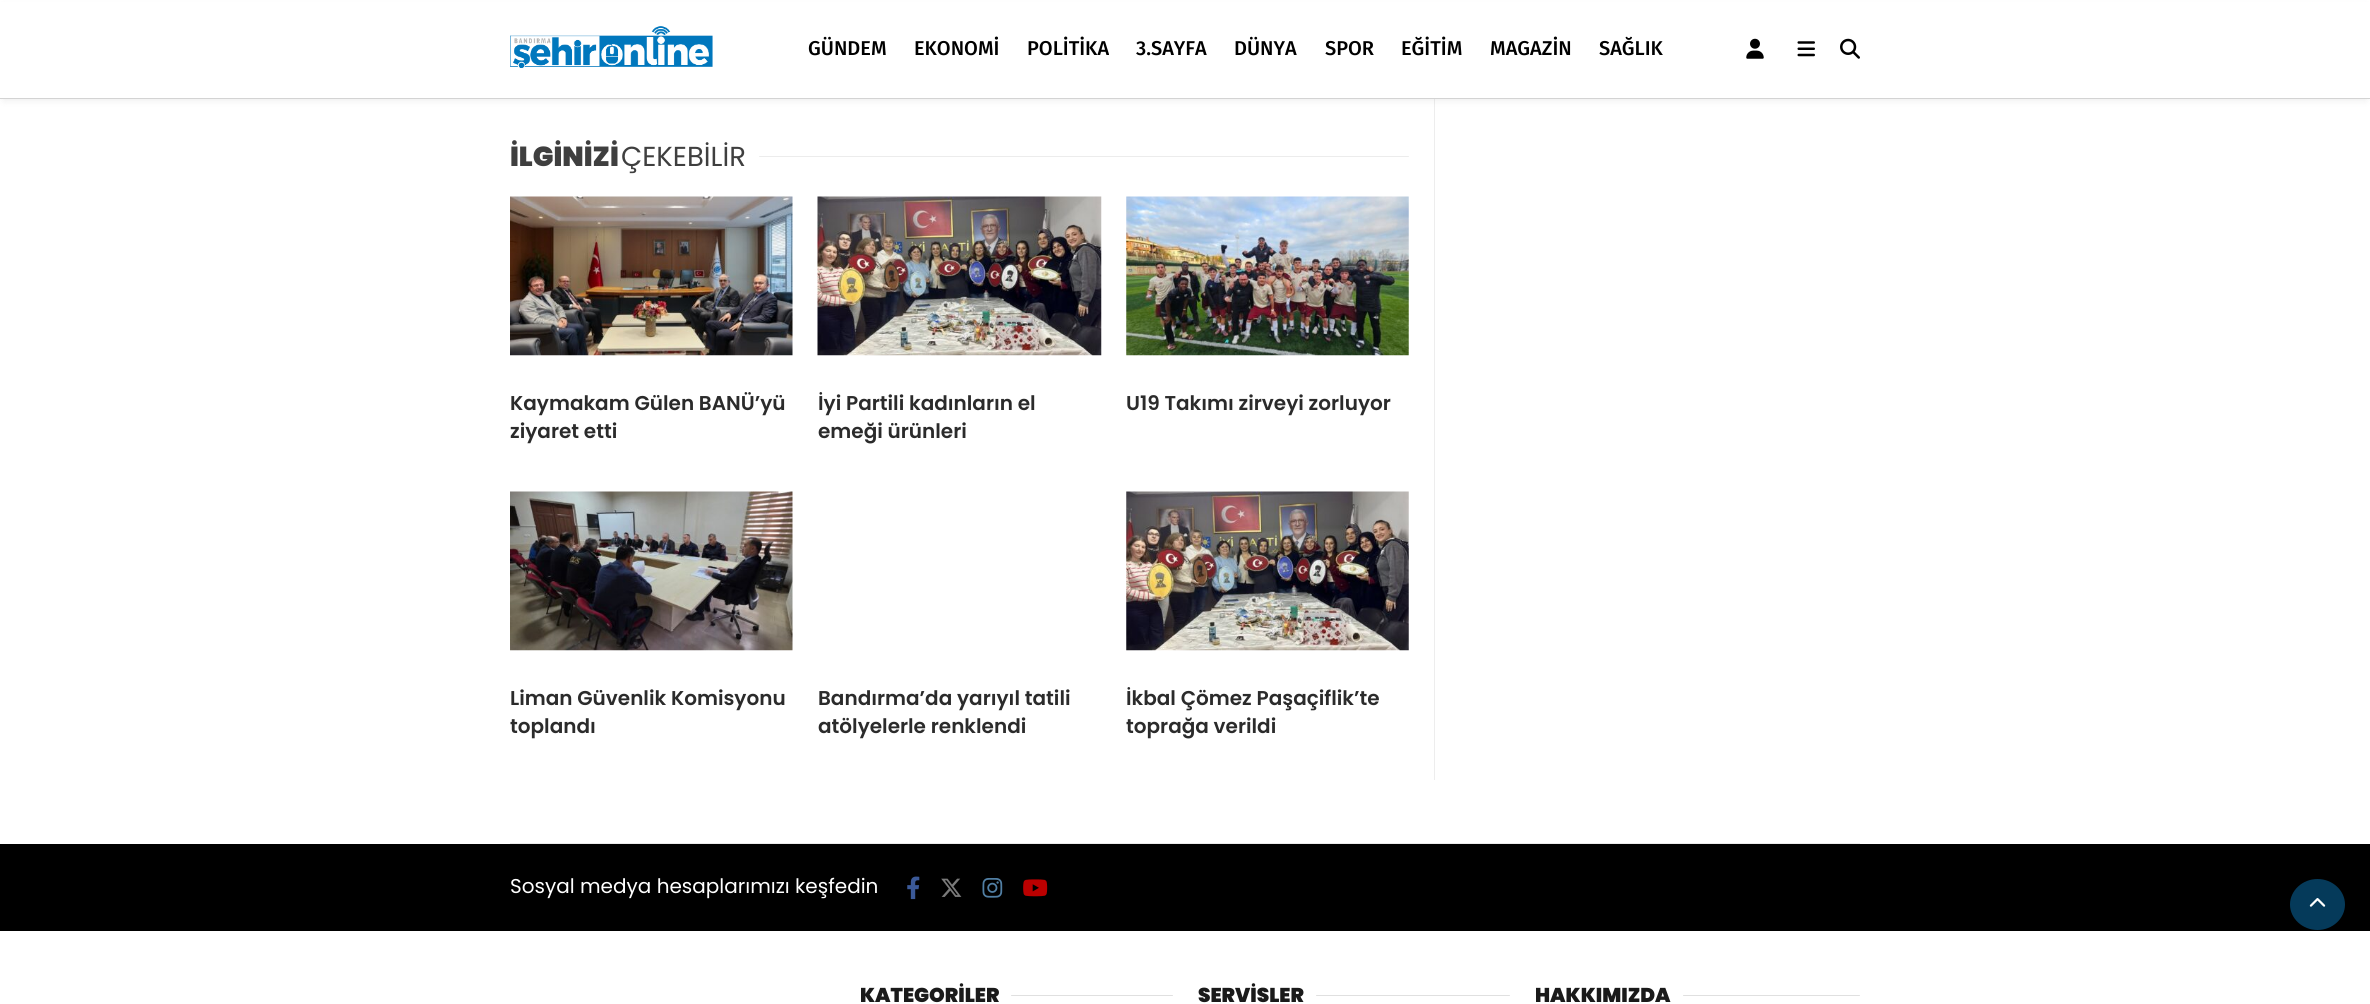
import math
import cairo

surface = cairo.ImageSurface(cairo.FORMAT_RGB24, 2370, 1004)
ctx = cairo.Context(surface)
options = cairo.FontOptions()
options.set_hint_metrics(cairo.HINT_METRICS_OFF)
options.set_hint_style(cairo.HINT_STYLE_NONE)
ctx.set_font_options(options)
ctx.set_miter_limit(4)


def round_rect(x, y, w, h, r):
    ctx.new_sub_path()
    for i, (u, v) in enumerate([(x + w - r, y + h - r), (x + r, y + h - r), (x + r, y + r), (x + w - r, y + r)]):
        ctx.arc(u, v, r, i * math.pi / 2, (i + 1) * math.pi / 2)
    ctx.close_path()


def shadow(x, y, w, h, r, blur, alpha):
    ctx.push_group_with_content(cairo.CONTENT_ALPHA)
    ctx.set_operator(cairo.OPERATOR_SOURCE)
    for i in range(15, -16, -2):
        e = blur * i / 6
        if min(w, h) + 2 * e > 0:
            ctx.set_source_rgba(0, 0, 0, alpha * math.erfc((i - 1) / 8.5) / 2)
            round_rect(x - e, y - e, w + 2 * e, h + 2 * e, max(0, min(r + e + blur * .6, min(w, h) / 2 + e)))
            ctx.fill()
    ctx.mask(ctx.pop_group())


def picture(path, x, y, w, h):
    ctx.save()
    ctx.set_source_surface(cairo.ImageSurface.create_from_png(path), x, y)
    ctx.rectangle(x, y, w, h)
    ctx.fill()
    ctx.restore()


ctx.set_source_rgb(1, 1, 1)
ctx.paint()
ctx.set_source_rgb(0.929, 0.929, 0.929)
ctx.rectangle(1434, 99, 1, 681)
ctx.fill()
ctx.set_source_rgb(0, 0, 0)
shadow(4, 8, 2362, 91, 0, 4.5, 0.1)
ctx.set_source_rgb(1, 1, 1)
ctx.rectangle(0, 2, 2370, 96)
ctx.fill()
ctx.set_source_rgb(0.827, 0.827, 0.827)
ctx.rectangle(0, 98, 2370, 1)
ctx.fill()
picture("img1.png", 510, 26, 203, 43)
ctx.select_font_face("Fira Sans Medium")
ctx.set_font_size(20)
ctx.set_source_rgb(0, 0, 0)
ctx.move_to(808, 55)
ctx.show_text("GÜNDEM")
ctx.move_to(914, 55)
ctx.show_text("EKONOMİ")
ctx.move_to(1027, 55)
ctx.show_text("POLİTİKA")
ctx.move_to(1136, 55)
ctx.show_text("3.SAYFA")
ctx.move_to(1234, 55)
ctx.show_text("DÜNYA")
ctx.move_to(1325, 55)
ctx.show_text("SPOR")
ctx.move_to(1401, 55)
ctx.show_text("EĞİTİM")
ctx.move_to(1490, 55)
ctx.show_text("MAGAZİN")
ctx.move_to(1599, 55)
ctx.show_text("SAĞLIK")
picture("img2.png", 1746, 38, 18, 21)
picture("img3.png", 1797, 41, 18, 16)
picture("img4.png", 1840, 38, 20, 21)
ctx.set_source_rgb(0.922, 0.922, 0.922)
ctx.rectangle(510, 843, 1350, 1)
ctx.fill()
ctx.select_font_face("Poppins Black")
ctx.set_font_size(27.5)
ctx.set_source_rgb(0.247, 0.247, 0.247)
ctx.move_to(510, 166)
ctx.show_text("İLGİNİZİ")
ctx.select_font_face("Poppins")
ctx.move_to(621, 166)
ctx.show_text("ÇEKEBİLİR")
ctx.set_source_rgb(0.925, 0.925, 0.925)
round_rect(759, 156, 650, 1, 0.5)
ctx.fill()
picture("img5.png", 510, 196, 283, 160)
ctx.select_font_face("Poppins SemiBold")
ctx.set_font_size(20)
ctx.set_source_rgb(0.169, 0.169, 0.169)
ctx.move_to(510, 410)
ctx.show_text("Kaymakam Gülen BANÜ’yü")
ctx.move_to(510, 438)
ctx.show_text("ziyaret etti")
picture("img6.png", 817, 196, 285, 160)
ctx.move_to(818, 410)
ctx.show_text("İyi Partili kadınların el")
ctx.move_to(818, 438)
ctx.show_text("emeği ürünleri")
picture("img7.png", 1126, 196, 283, 160)
ctx.move_to(1126, 410)
ctx.show_text("U19 Takımı zirveyi zorluyor")
picture("img8.png", 510, 491, 283, 160)
ctx.move_to(510, 705)
ctx.show_text("Liman Güvenlik Komisyonu")
ctx.move_to(510, 733)
ctx.show_text("toplandı")
ctx.move_to(818, 705)
ctx.show_text("Bandırma’da yarıyıl tatili")
ctx.move_to(818, 733)
ctx.show_text("atölyelerle renklendi")
picture("img9.png", 1126, 491, 283, 160)
ctx.move_to(1126, 705)
ctx.show_text("İkbal Çömez Paşaçiflik’te")
ctx.move_to(1126, 733)
ctx.show_text("toprağa verildi")
ctx.set_source_rgb(0, 0, 0)
ctx.rectangle(0, 844, 2370, 87)
ctx.fill()
ctx.select_font_face("Poppins")
ctx.set_source_rgb(1, 1, 1)
ctx.move_to(510, 893)
ctx.show_text("Sosyal medya hesaplarımızı keşfedin")
picture("img10.png", 907, 876, 13, 24)
picture("img11.png", 941, 878, 21, 19)
picture("img12.png", 982, 878, 21, 20)
picture("img13.png", 1023, 879, 25, 18)
ctx.select_font_face("Poppins Black")
ctx.set_source_rgb(0.102, 0.102, 0.102)
ctx.move_to(860, 1002)
ctx.show_text("KATEGORİLER")
ctx.set_source_rgb(0.878, 0.878, 0.878)
round_rect(1011, 995, 162, 1, 0.5)
ctx.fill()
ctx.set_source_rgb(0.102, 0.102, 0.102)
ctx.move_to(1198, 1002)
ctx.show_text("SERVİSLER")
ctx.set_source_rgb(0.878, 0.878, 0.878)
round_rect(1316, 995, 194, 1, 0.5)
ctx.fill()
ctx.set_source_rgb(0.102, 0.102, 0.102)
ctx.move_to(1535, 1002)
ctx.show_text("HAKKIMIZDA")
ctx.set_source_rgb(0.878, 0.878, 0.878)
round_rect(1683, 995, 177, 1, 0.5)
ctx.fill()
ctx.set_source_rgb(0.02, 0.227, 0.353)
ctx.new_path()
ctx.move_to(2317.5, 879)
ctx.curve_to(2332.5, 879, 2345, 890.5, 2345, 904.5)
ctx.curve_to(2345, 918.5, 2332.5, 930, 2317.5, 930)
ctx.curve_to(2302.5, 930, 2290, 918.5, 2290, 904.5)
ctx.curve_to(2290, 890.5, 2302.5, 879, 2317.5, 879)
ctx.close_path()
ctx.fill()
picture("img14.png", 2309, 898, 17, 9)
surface.write_to_png("page.png")
